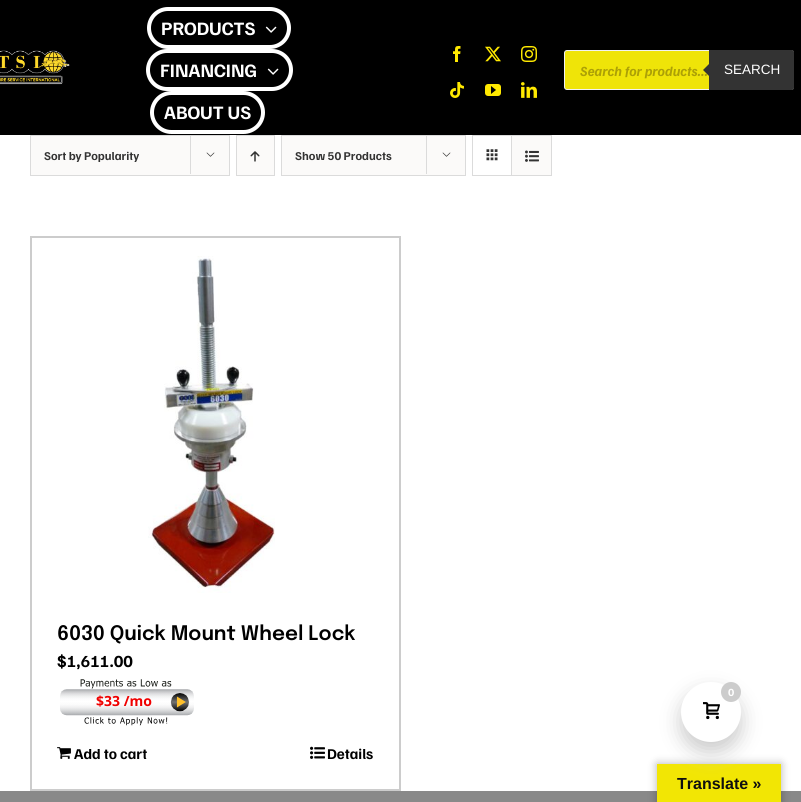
import math
import cairo

surface = cairo.ImageSurface(cairo.FORMAT_RGB24, 801, 802)
ctx = cairo.Context(surface)
options = cairo.FontOptions()
options.set_hint_metrics(cairo.HINT_METRICS_OFF)
options.set_hint_style(cairo.HINT_STYLE_NONE)
ctx.set_font_options(options)
ctx.set_miter_limit(4)


def round_rect(x, y, w, h, r):
    ctx.new_sub_path()
    for i, (u, v) in enumerate([(x + w - r, y + h - r), (x + r, y + h - r), (x + r, y + r), (x + w - r, y + r)]):
        ctx.arc(u, v, r, i * math.pi / 2, (i + 1) * math.pi / 2)
    ctx.close_path()


def shadow(x, y, w, h, r, blur, alpha):
    ctx.push_group_with_content(cairo.CONTENT_ALPHA)
    ctx.set_operator(cairo.OPERATOR_SOURCE)
    for i in range(15, -16, -2):
        e = blur * i / 6
        if min(w, h) + 2 * e > 0:
            ctx.set_source_rgba(0, 0, 0, alpha * math.erfc((i - 1) / 8.5) / 2)
            round_rect(x - e, y - e, w + 2 * e, h + 2 * e, max(0, min(r + e + blur * .6, min(w, h) / 2 + e)))
            ctx.fill()
    ctx.mask(ctx.pop_group())


def picture(path, x, y, w, h):
    ctx.save()
    ctx.set_source_surface(cairo.ImageSurface.create_from_png(path), x, y)
    ctx.rectangle(x, y, w, h)
    ctx.fill()
    ctx.restore()


ctx.set_source_rgb(1, 1, 1)
ctx.paint()
ctx.set_source_rgb(0, 0, 0)
ctx.rectangle(0, 0, 801, 135)
ctx.fill()
picture("img1.png", 0, 50, 70, 35)
round_rect(149, 9, 140, 38, 19)
ctx.set_source_rgb(1, 1, 1)
ctx.set_line_width(4)
ctx.stroke()
ctx.select_font_face("Familjen Grotesk", cairo.FONT_SLANT_NORMAL, cairo.FONT_WEIGHT_BOLD)
ctx.set_font_size(19)
ctx.move_to(161, 35)
ctx.show_text("PRODUCTS")
picture("img2.png", 265, 26, 12, 7)
round_rect(148, 51, 143, 38, 19)
ctx.stroke()
ctx.move_to(160, 77)
ctx.show_text("FINANCING")
picture("img2.png", 267, 68, 12, 7)
round_rect(152, 93, 111, 39, 19.5)
ctx.stroke()
ctx.move_to(164, 119)
ctx.show_text("ABOUT US")
picture("img3.png", 453, 46, 8, 16)
picture("img4.png", 485, 46, 16, 16)
picture("img5.png", 521, 46, 16, 16)
picture("img6.png", 450, 82, 14, 16)
picture("img7.png", 485, 84, 16, 12)
picture("img8.png", 521, 82, 16, 16)
ctx.set_source_rgb(0.937, 0.894, 0.035)
round_rect(564.5, 50.5, 229, 39, 2.5)
ctx.fill_preserve()
ctx.set_source_rgb(0.949, 0.949, 0.949)
ctx.set_line_width(1)
ctx.stroke()
ctx.select_font_face("Familjen Grotesk", cairo.FONT_SLANT_ITALIC, cairo.FONT_WEIGHT_BOLD)
ctx.set_font_size(14)
ctx.set_source_rgb(0.675, 0.627, 0.024)
ctx.move_to(580, 76)
ctx.show_text("Search for products...")
ctx.set_source_rgb(0.2, 0.2, 0.2)
ctx.new_path()
ctx.move_to(709, 50)
ctx.line_to(792, 50)
ctx.curve_to(793, 50, 794, 51, 794, 52)
ctx.line_to(794, 88)
ctx.curve_to(794, 89, 793, 90, 792, 90)
ctx.line_to(709, 90)
ctx.close_path()
ctx.fill()
ctx.new_path()
ctx.move_to(711, 62)
ctx.line_to(711, 78)
ctx.line_to(703, 70)
ctx.close_path()
ctx.fill()
ctx.select_font_face("Liberation Sans")
ctx.set_font_size(13.5)
ctx.set_source_rgb(1, 1, 1)
ctx.move_to(724, 74)
ctx.show_text("SEARCH")
ctx.set_source_rgb(0.984, 0.98, 0.976)
ctx.rectangle(30.5, 135.5, 199, 40)
ctx.fill_preserve()
ctx.set_source_rgb(0.859, 0.859, 0.859)
ctx.stroke()
ctx.select_font_face("Familjen Grotesk", cairo.FONT_SLANT_NORMAL, cairo.FONT_WEIGHT_BOLD)
ctx.set_font_size(12)
ctx.set_source_rgb(0.2, 0.2, 0.2)
ctx.move_to(44, 160)
ctx.show_text("Sort by Popularity")
ctx.set_source_rgb(0.859, 0.859, 0.859)
ctx.rectangle(190, 135, 1, 39)
ctx.fill()
picture("img9.png", 206, 152, 9, 5)
ctx.set_source_rgb(0.984, 0.98, 0.976)
ctx.rectangle(236.5, 135.5, 38, 40)
ctx.fill_preserve()
ctx.set_source_rgb(0.859, 0.859, 0.859)
ctx.stroke()
picture("img10.png", 250, 151, 10, 11)
ctx.set_source_rgb(0.984, 0.98, 0.976)
ctx.rectangle(281.5, 135.5, 184, 40)
ctx.fill_preserve()
ctx.set_source_rgb(0.859, 0.859, 0.859)
ctx.stroke()
ctx.set_source_rgb(0.2, 0.2, 0.2)
ctx.move_to(295, 160)
ctx.show_text("Show 50 Products")
ctx.set_source_rgb(0.859, 0.859, 0.859)
ctx.rectangle(426, 135, 1, 39)
ctx.fill()
picture("img9.png", 442, 152, 9, 5)
ctx.rectangle(472.5, 135.5, 79, 40)
ctx.stroke()
ctx.rectangle(511, 136, 1, 39)
ctx.fill()
picture("img11.png", 486, 149, 12, 12)
ctx.set_source_rgb(0.984, 0.98, 0.976)
ctx.rectangle(512, 136, 39, 39)
ctx.fill()
picture("img12.png", 525, 150, 14, 12)
ctx.rectangle(31, 237, 369, 553)
ctx.set_source_rgb(0.8, 0.8, 0.8)
ctx.set_line_width(2)
ctx.stroke()
picture("img13.png", 148, 256, 127, 337)
ctx.select_font_face("Epilogue SemiBold")
ctx.set_font_size(20)
ctx.set_source_rgb(0, 0, 0)
ctx.move_to(57, 640)
ctx.show_text("6030 Quick Mount Wheel Lock")
ctx.select_font_face("Familjen Grotesk", cairo.FONT_SLANT_NORMAL, cairo.FONT_WEIGHT_BOLD)
ctx.set_font_size(17)
ctx.move_to(57, 667)
ctx.show_text("$1,611.00")
picture("img14.png", 60, 679, 134, 47)
ctx.select_font_face("Open Sans", cairo.FONT_SLANT_NORMAL, cairo.FONT_WEIGHT_BOLD)
ctx.set_font_size(14)
ctx.set_source_rgb(0.941, 0, 0)
ctx.move_to(96, 706)
ctx.show_text("$33 /mo")
picture("img15.png", 57, 747, 14, 12)
ctx.select_font_face("Familjen Grotesk", cairo.FONT_SLANT_NORMAL, cairo.FONT_WEIGHT_BOLD)
ctx.set_font_size(15)
ctx.set_source_rgb(0, 0, 0)
ctx.move_to(74, 759)
ctx.show_text("Add to cart")
picture("img16.png", 310, 746, 15, 13)
ctx.move_to(327, 759)
ctx.show_text("Details")
ctx.set_source_rgb(0.537, 0.537, 0.537)
ctx.rectangle(0, 791, 801, 11)
ctx.fill()
ctx.set_source_rgb(0, 0, 0)
shadow(657, 764, 124, 38, 0, 4.5, 0.3)
ctx.set_source_rgb(0.949, 0.902, 0.016)
ctx.rectangle(657, 764, 124, 38)
ctx.fill()
ctx.set_source_rgb(0.8, 0.8, 0.8)
shadow(681, 692, 60, 60, 30, 10, 1)
ctx.set_source_rgb(1, 1, 1)
ctx.arc(711, 712, 30, 0, 2 * math.pi)
ctx.fill()
ctx.set_source_rgb(0.8, 0.8, 0.8)
ctx.arc(731, 692, 10, 0, 2 * math.pi)
ctx.fill()
ctx.set_font_size(11)
ctx.set_source_rgb(1, 1, 1)
ctx.move_to(728, 696)
ctx.show_text("0")
picture("img17.png", 703, 702, 17, 18)
ctx.select_font_face("Liberation Sans", cairo.FONT_SLANT_NORMAL, cairo.FONT_WEIGHT_BOLD)
ctx.set_font_size(16)
ctx.set_source_rgb(0.059, 0.059, 0.059)
ctx.move_to(677, 789)
ctx.show_text("Translate »")
surface.write_to_png("page.png")
